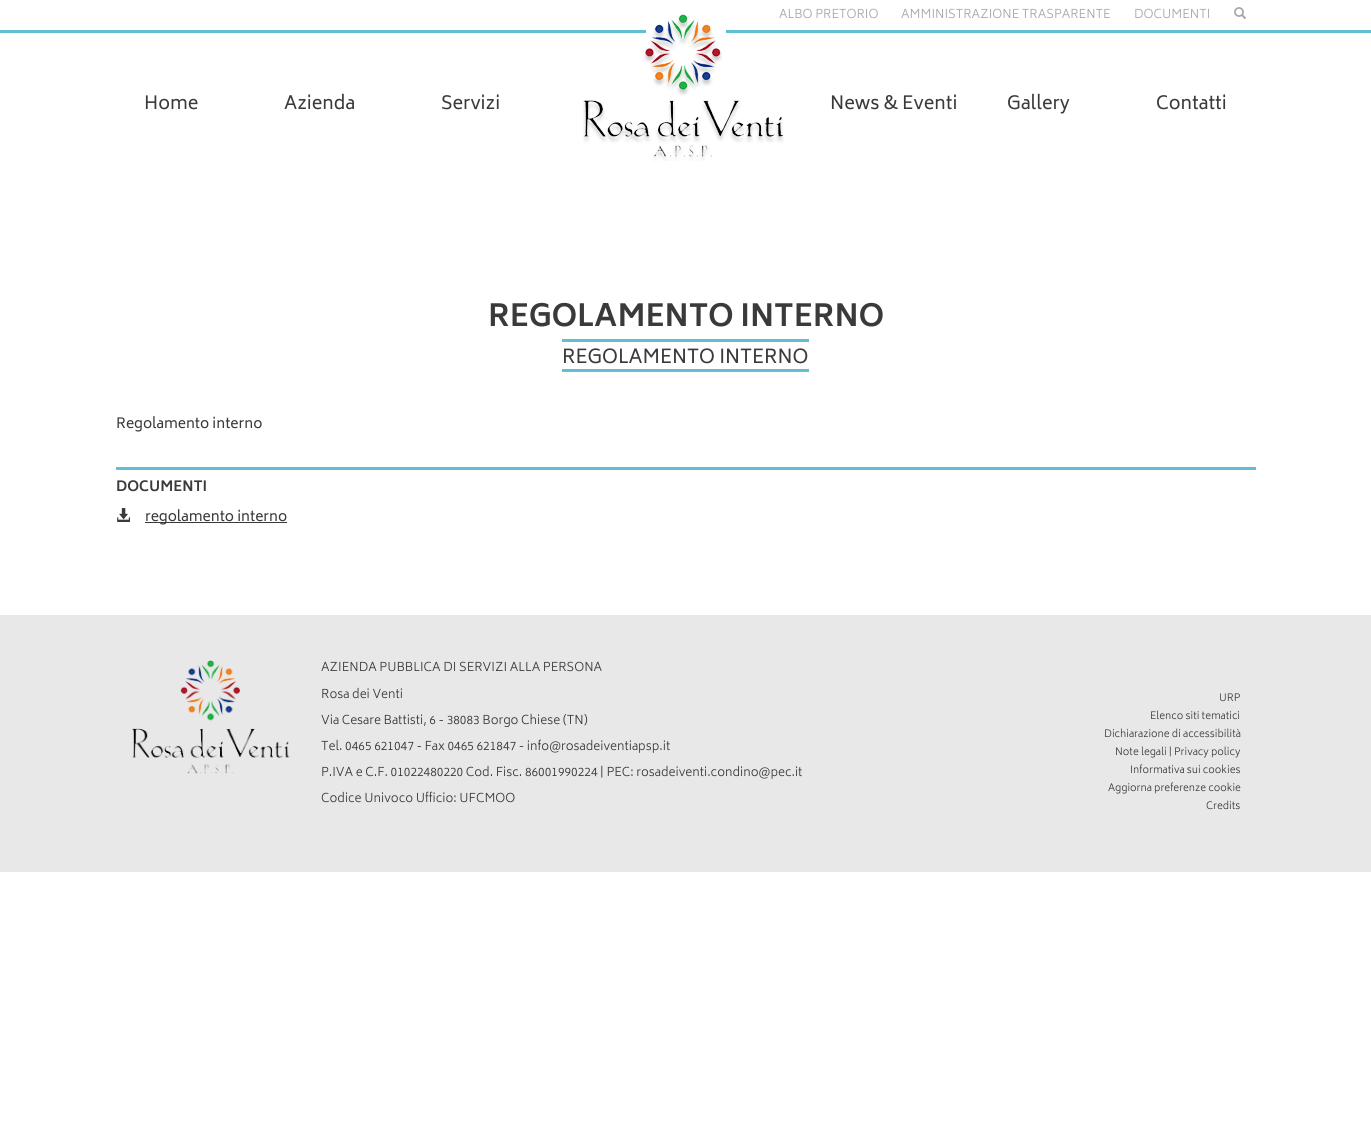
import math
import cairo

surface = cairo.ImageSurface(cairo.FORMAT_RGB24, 1371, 1143)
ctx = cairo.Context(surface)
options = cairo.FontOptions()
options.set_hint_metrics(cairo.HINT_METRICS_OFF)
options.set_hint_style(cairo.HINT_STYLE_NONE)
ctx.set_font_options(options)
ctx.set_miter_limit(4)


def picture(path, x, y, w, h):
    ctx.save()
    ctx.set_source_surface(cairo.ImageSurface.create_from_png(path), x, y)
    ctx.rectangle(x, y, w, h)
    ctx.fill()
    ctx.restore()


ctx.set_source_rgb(1, 1, 1)
ctx.paint()
ctx.select_font_face("Biryani Light")
ctx.set_font_size(12)
ctx.set_source_rgb(0.651, 0.651, 0.651)
ctx.move_to(779, 18)
ctx.show_text("ALBO PRETORIO")
ctx.move_to(901, 18)
ctx.show_text("AMMINISTRAZIONE TRASPARENTE")
ctx.move_to(1134, 18)
ctx.show_text("DOCUMENTI")
picture("img1.png", 1234, 7, 12, 12)
ctx.set_source_rgb(0.376, 0.745, 0.839)
ctx.rectangle(0, 30, 1371, 3)
ctx.fill()
ctx.set_source_rgb(1, 1, 1)
ctx.rectangle(646, 30, 80, 3)
ctx.fill()
ctx.select_font_face("Biryani")
ctx.set_font_size(18)
ctx.set_source_rgb(0.227, 0.227, 0.227)
ctx.move_to(144, 109)
ctx.show_text("Home")
ctx.move_to(284, 109)
ctx.show_text("Azienda")
ctx.move_to(441, 109)
ctx.show_text("Servizi")
picture("img2.png", 583, 14, 201, 147)
ctx.move_to(830, 109)
ctx.show_text("News & Eventi")
ctx.move_to(1007, 109)
ctx.show_text("Gallery")
ctx.move_to(1156, 109)
ctx.show_text("Contatti")
ctx.select_font_face("Biryani", cairo.FONT_SLANT_NORMAL, cairo.FONT_WEIGHT_BOLD)
ctx.set_font_size(30)
ctx.move_to(488, 326)
ctx.show_text("REGOLAMENTO INTERNO")
ctx.set_source_rgb(0.376, 0.745, 0.839)
ctx.rectangle(562, 339, 247, 3)
ctx.fill()
ctx.rectangle(562, 369, 247, 3)
ctx.fill()
ctx.select_font_face("Biryani")
ctx.set_font_size(19)
ctx.set_source_rgb(0.227, 0.227, 0.227)
ctx.move_to(562, 363)
ctx.show_text("REGOLAMENTO INTERNO")
ctx.set_font_size(14)
ctx.move_to(116, 428)
ctx.show_text("Regolamento interno")
ctx.set_source_rgb(0.376, 0.745, 0.839)
ctx.rectangle(116, 467, 1140, 3)
ctx.fill()
ctx.select_font_face("Biryani", cairo.FONT_SLANT_NORMAL, cairo.FONT_WEIGHT_BOLD)
ctx.set_source_rgb(0.227, 0.227, 0.227)
ctx.move_to(116, 491)
ctx.show_text("DOCUMENTI")
picture("img3.png", 117, 508, 13, 14)
ctx.rectangle(145, 522, 142, 1)
ctx.fill()
ctx.select_font_face("Biryani")
ctx.move_to(145, 521)
ctx.show_text("regolamento interno")
ctx.set_source_rgb(0.91, 0.91, 0.91)
ctx.rectangle(0, 615, 1371, 257)
ctx.fill()
picture("img4.png", 132, 660, 158, 114)
ctx.select_font_face("Biryani Light")
ctx.set_font_size(12)
ctx.set_source_rgb(0.227, 0.227, 0.227)
ctx.move_to(321, 671)
ctx.show_text("AZIENDA PUBBLICA DI SERVIZI ALLA PERSONA")
ctx.move_to(321, 698)
ctx.show_text("Rosa dei Venti")
ctx.move_to(321, 724)
ctx.show_text("Via Cesare Battisti, 6 - 38083 Borgo Chiese (TN)")
ctx.move_to(321, 750)
ctx.show_text("Tel. 0465 621047 - Fax 0465 621847 - info@rosadeiventiapsp.it")
ctx.move_to(321, 776)
ctx.show_text("P.IVA e C.F. 01022480220 Cod. Fisc. 86001990224 | PEC: rosadeiventi.condino@pec.it")
ctx.move_to(321, 802)
ctx.show_text("Codice Univoco Ufficio: UFCMOO")
ctx.set_font_size(10)
ctx.move_to(1219, 701)
ctx.show_text("URP")
ctx.move_to(1150, 719)
ctx.show_text("Elenco siti tematici")
ctx.move_to(1104, 737)
ctx.show_text("Dichiarazione di accessibilità")
ctx.move_to(1115, 755)
ctx.show_text("Note legali | Privacy policy")
ctx.move_to(1130, 773)
ctx.show_text("Informativa sui cookies")
ctx.move_to(1108, 791)
ctx.show_text("Aggiorna preferenze cookie")
ctx.move_to(1206, 809)
ctx.show_text("Credits")
surface.write_to_png("page.png")
